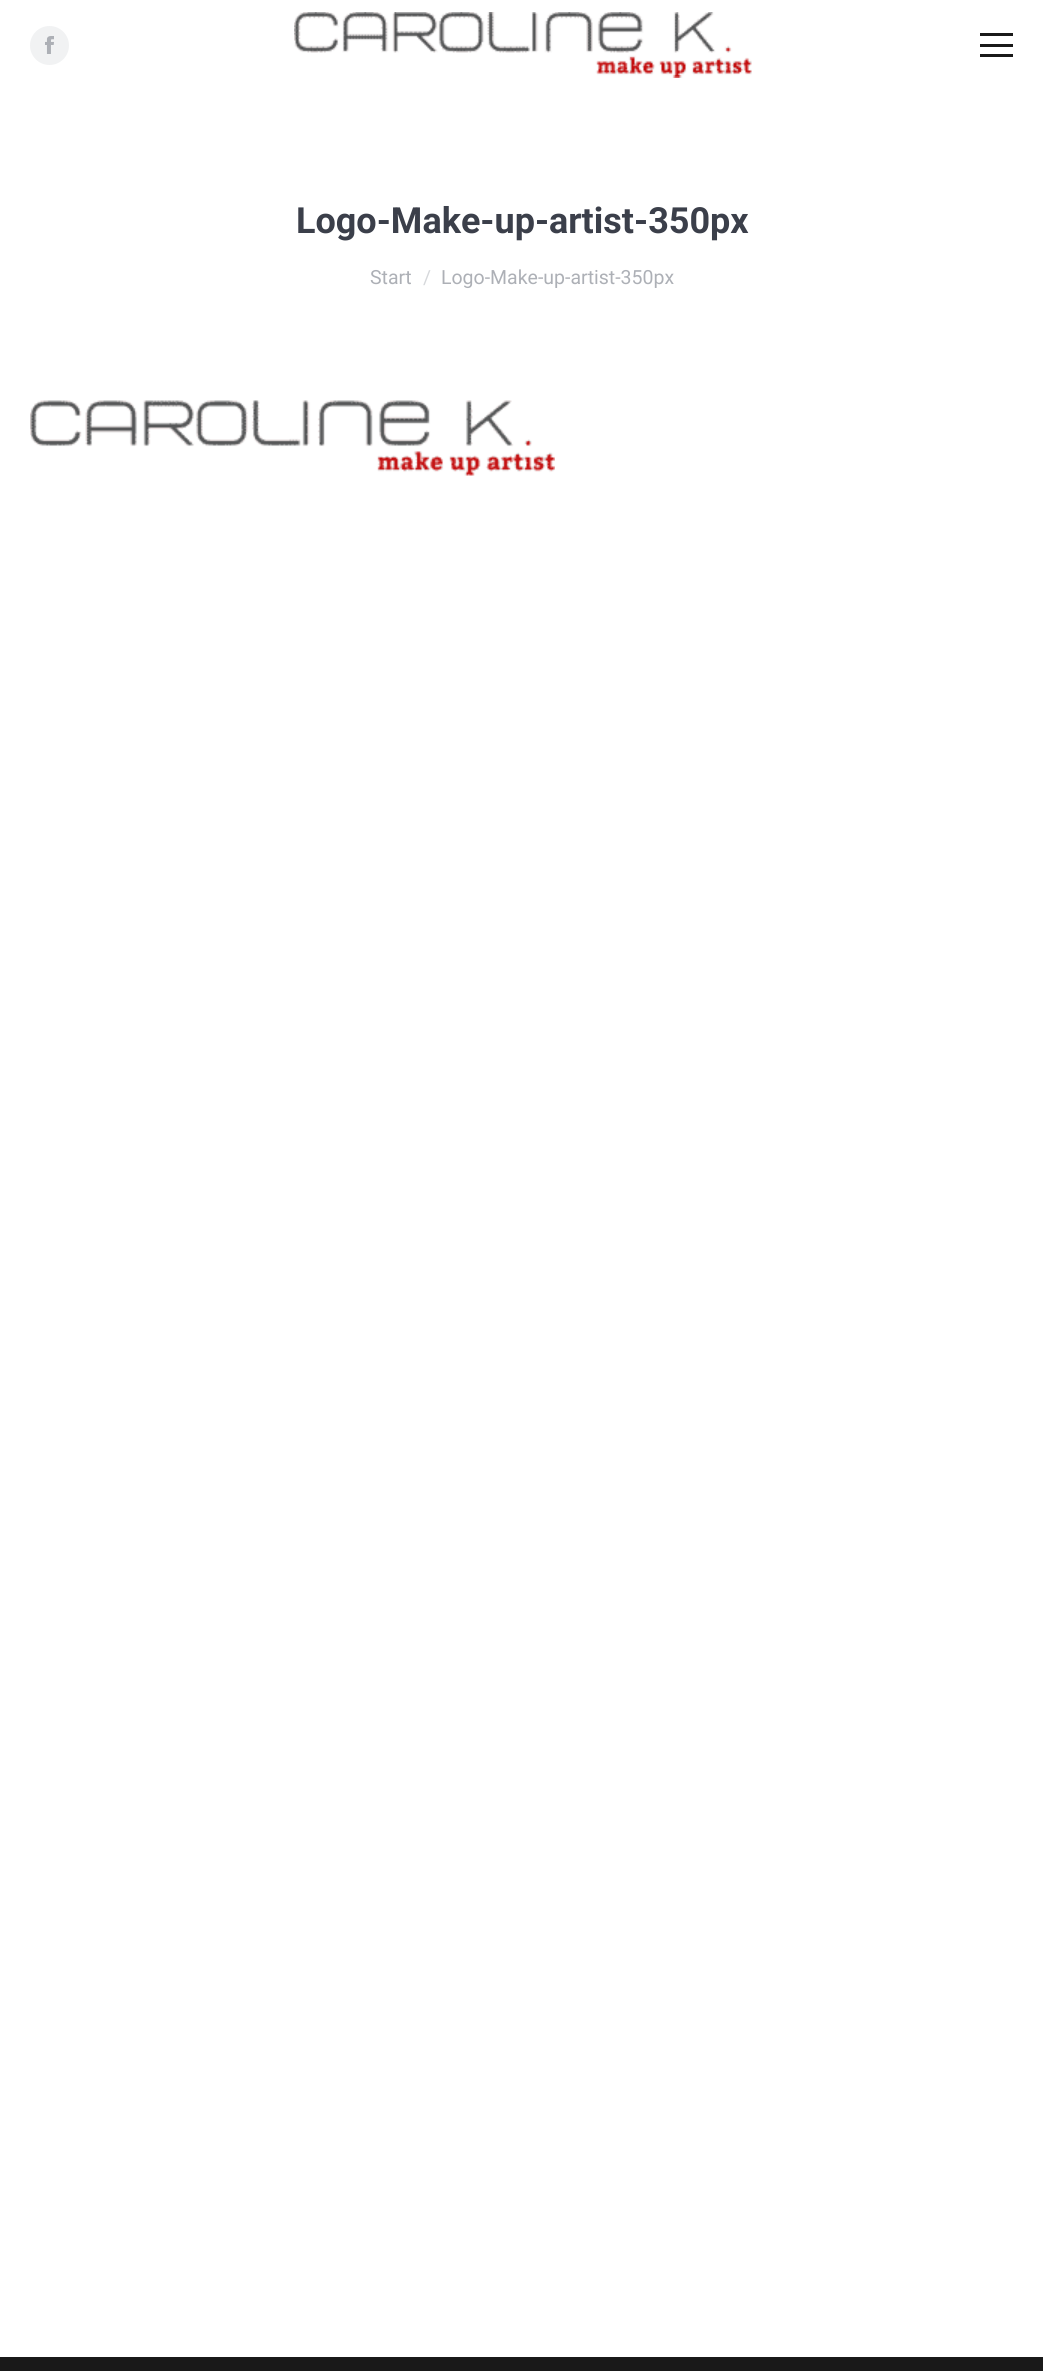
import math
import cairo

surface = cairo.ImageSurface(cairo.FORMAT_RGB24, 1043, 2371)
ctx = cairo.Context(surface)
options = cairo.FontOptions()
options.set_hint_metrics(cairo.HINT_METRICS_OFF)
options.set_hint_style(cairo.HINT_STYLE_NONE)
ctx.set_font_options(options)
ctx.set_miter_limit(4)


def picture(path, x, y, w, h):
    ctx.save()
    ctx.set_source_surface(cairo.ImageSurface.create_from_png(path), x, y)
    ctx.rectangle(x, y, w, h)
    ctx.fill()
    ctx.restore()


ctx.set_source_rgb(0.098, 0.098, 0.098)
ctx.paint()
ctx.set_source_rgb(1, 1, 1)
ctx.rectangle(0, 0, 1043, 2357)
ctx.fill()
ctx.set_source_rgb(0.945, 0.949, 0.953)
ctx.arc(49.5, 45.5, 19.5, 0, 2 * math.pi)
ctx.fill()
picture("img1.png", 45, 36, 9, 18)
picture("img2.png", 294, 12, 458, 66)
ctx.set_source_rgb(0.098, 0.098, 0.098)
ctx.rectangle(980, 44, 33, 3)
ctx.fill()
ctx.rectangle(980, 33, 33, 3)
ctx.fill()
ctx.rectangle(980, 54, 33, 3)
ctx.fill()
ctx.select_font_face("Roboto", cairo.FONT_SLANT_NORMAL, cairo.FONT_WEIGHT_BOLD)
ctx.set_font_size(36)
ctx.set_source_rgb(0.231, 0.247, 0.29)
ctx.move_to(296, 233)
ctx.show_text("Logo-Make-up-artist-350px")
ctx.select_font_face("Roboto")
ctx.set_font_size(19.5)
ctx.set_source_rgb(0.678, 0.69, 0.714)
ctx.move_to(370, 284)
ctx.show_text("Start")
ctx.set_source_rgb(0.839, 0.847, 0.859)
ctx.move_to(423, 284)
ctx.show_text("/")
ctx.set_source_rgb(0.678, 0.69, 0.714)
ctx.move_to(441, 284)
ctx.show_text("Logo-Make-up-artist-350px")
picture("img3.png", 30, 400, 525, 76)
surface.write_to_png("page.png")
